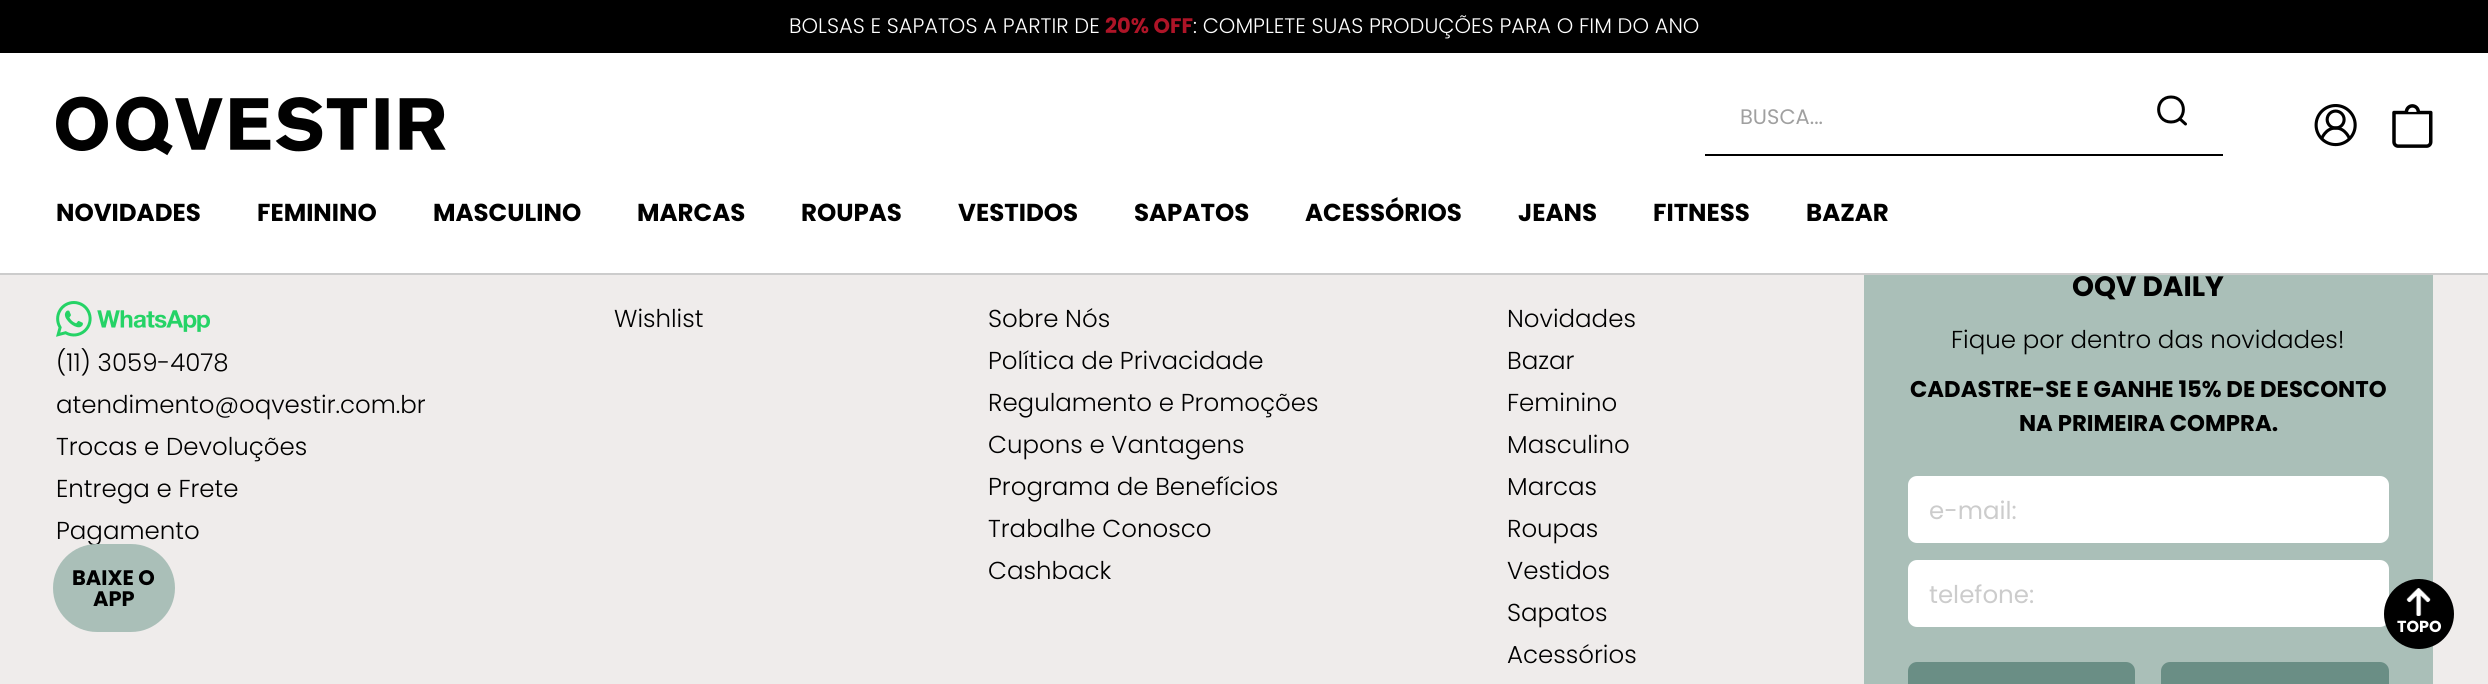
import math
import cairo

surface = cairo.ImageSurface(cairo.FORMAT_RGB24, 2488, 684)
ctx = cairo.Context(surface)
options = cairo.FontOptions()
options.set_hint_metrics(cairo.HINT_METRICS_OFF)
options.set_hint_style(cairo.HINT_STYLE_NONE)
ctx.set_font_options(options)
ctx.set_miter_limit(4)


def round_rect(x, y, w, h, r):
    ctx.new_sub_path()
    for i, (u, v) in enumerate([(x + w - r, y + h - r), (x + r, y + h - r), (x + r, y + r), (x + w - r, y + r)]):
        ctx.arc(u, v, r, i * math.pi / 2, (i + 1) * math.pi / 2)
    ctx.close_path()


def picture(path, x, y, w, h):
    ctx.save()
    ctx.set_source_surface(cairo.ImageSurface.create_from_png(path), x, y)
    ctx.rectangle(x, y, w, h)
    ctx.fill()
    ctx.restore()


ctx.set_source_rgb(0.937, 0.925, 0.918)
ctx.paint()
ctx.set_source_rgb(1, 1, 1)
ctx.rectangle(0, 53, 2488, 220)
ctx.fill()
ctx.set_source_rgb(0.8, 0.8, 0.8)
ctx.rectangle(0, 273, 2488, 2)
ctx.fill()
ctx.set_source_rgb(0, 0, 0)
ctx.rectangle(0, 0, 2488, 53)
ctx.fill()
ctx.select_font_face("Poppins Light")
ctx.set_font_size(21)
ctx.set_source_rgb(1, 1, 1)
ctx.move_to(789, 33)
ctx.show_text("BOLSAS E SAPATOS A PARTIR DE")
ctx.select_font_face("Poppins", cairo.FONT_SLANT_NORMAL, cairo.FONT_WEIGHT_BOLD)
ctx.set_source_rgb(0.682, 0.082, 0.153)
ctx.move_to(1105, 33)
ctx.show_text("20% OFF")
ctx.select_font_face("Poppins Light")
ctx.set_source_rgb(1, 1, 1)
ctx.move_to(1193, 33)
ctx.show_text(": COMPLETE SUAS PRODUÇÕES PARA O FIM DO ANO")
picture("img1.png", 56, 96, 390, 60)
ctx.set_source_rgb(0, 0, 0)
ctx.rectangle(1705, 154, 518, 2)
ctx.fill()
ctx.select_font_face("Poppins")
ctx.set_source_rgb(0.627, 0.627, 0.627)
ctx.move_to(1740, 124)
ctx.show_text("BUSCA...")
ctx.new_path()
ctx.move_to(2171, 122)
ctx.curve_to(2187.5, 122, 2187.5, 97, 2171, 97)
ctx.curve_to(2154.5, 97, 2154.5, 122, 2171, 122)
ctx.close_path()
ctx.set_source_rgb(0, 0, 0)
ctx.set_line_width(3)
ctx.stroke()
ctx.new_path()
ctx.move_to(2185.5, 124)
ctx.line_to(2180, 119)
ctx.set_line_cap(cairo.LINE_CAP_ROUND)
ctx.set_line_join(cairo.LINE_JOIN_ROUND)
ctx.stroke()
picture("img2.png", 2314, 104, 43, 43)
picture("img3.png", 2392, 104, 41, 44)
ctx.select_font_face("Poppins", cairo.FONT_SLANT_NORMAL, cairo.FONT_WEIGHT_BOLD)
ctx.set_font_size(24.5)
ctx.move_to(56, 221)
ctx.show_text("NOVIDADES")
ctx.move_to(257, 221)
ctx.show_text("FEMININO")
ctx.move_to(433, 221)
ctx.show_text("MASCULINO")
ctx.move_to(637, 221)
ctx.show_text("MARCAS")
ctx.move_to(801, 221)
ctx.show_text("ROUPAS")
ctx.move_to(958, 221)
ctx.show_text("VESTIDOS")
ctx.move_to(1134, 221)
ctx.show_text("SAPATOS")
ctx.move_to(1305, 221)
ctx.show_text("ACESSÓRIOS")
ctx.move_to(1518, 221)
ctx.show_text("JEANS")
ctx.move_to(1653, 221)
ctx.show_text("FITNESS")
ctx.move_to(1806, 221)
ctx.show_text("BAZAR")
ctx.select_font_face("Poppins Light")
ctx.move_to(56, 539)
ctx.show_text("Pagamento")
ctx.set_source_rgb(0.667, 0.749, 0.722)
round_rect(53, 544, 122, 88, 44)
ctx.fill()
ctx.select_font_face("Poppins", cairo.FONT_SLANT_NORMAL, cairo.FONT_WEIGHT_BOLD)
ctx.set_font_size(21)
ctx.set_source_rgb(0, 0, 0)
ctx.move_to(72, 585)
ctx.show_text("BAIXE O")
ctx.move_to(93, 606)
ctx.show_text("APP")
picture("img4.png", 56, 301, 154, 36)
ctx.select_font_face("Poppins Light")
ctx.set_font_size(24.5)
ctx.move_to(56, 371)
ctx.show_text("(11) 3059-4078")
ctx.move_to(56, 413)
ctx.show_text("atendimento@oqvestir.com.br")
ctx.move_to(56, 455)
ctx.show_text("Trocas e Devoluções")
ctx.move_to(56, 497)
ctx.show_text("Entrega e Frete")
ctx.move_to(614, 327)
ctx.show_text("Wishlist")
ctx.move_to(988, 327)
ctx.show_text("Sobre Nós")
ctx.move_to(988, 369)
ctx.show_text("Política de Privacidade")
ctx.move_to(988, 411)
ctx.show_text("Regulamento e Promoções")
ctx.move_to(988, 453)
ctx.show_text("Cupons e Vantagens")
ctx.move_to(988, 495)
ctx.show_text("Programa de Benefícios")
ctx.move_to(988, 537)
ctx.show_text("Trabalhe Conosco")
ctx.move_to(988, 579)
ctx.show_text("Cashback")
ctx.move_to(1507, 327)
ctx.show_text("Novidades")
ctx.move_to(1507, 369)
ctx.show_text("Bazar")
ctx.move_to(1507, 411)
ctx.show_text("Feminino")
ctx.move_to(1507, 453)
ctx.show_text("Masculino")
ctx.move_to(1507, 495)
ctx.show_text("Marcas")
ctx.move_to(1507, 537)
ctx.show_text("Roupas")
ctx.move_to(1507, 579)
ctx.show_text("Vestidos")
ctx.move_to(1507, 621)
ctx.show_text("Sapatos")
ctx.move_to(1507, 663)
ctx.show_text("Acessórios")
ctx.set_source_rgb(0.667, 0.749, 0.722)
ctx.rectangle(1864, 275, 569, 409)
ctx.fill()
ctx.select_font_face("Poppins", cairo.FONT_SLANT_NORMAL, cairo.FONT_WEIGHT_BOLD)
ctx.set_font_size(28)
ctx.set_source_rgb(0, 0, 0)
ctx.move_to(2072, 296)
ctx.show_text("OQV DAILY")
ctx.select_font_face("Poppins Light")
ctx.set_font_size(24.5)
ctx.move_to(1951, 348)
ctx.show_text("Fique por dentro das novidades!")
ctx.select_font_face("Poppins", cairo.FONT_SLANT_NORMAL, cairo.FONT_WEIGHT_BOLD)
ctx.set_font_size(22.75)
ctx.move_to(1910, 397)
ctx.show_text("CADASTRE-SE E GANHE 15% DE DESCONTO")
ctx.move_to(2019, 431)
ctx.show_text("NA PRIMEIRA COMPRA.")
ctx.set_source_rgb(1, 1, 1)
round_rect(1908, 476, 481, 67, 9)
ctx.fill()
ctx.select_font_face("Poppins")
ctx.set_font_size(24.5)
ctx.set_source_rgb(0.8, 0.8, 0.8)
ctx.move_to(1929, 519)
ctx.show_text("e-mail:")
ctx.set_source_rgb(1, 1, 1)
round_rect(1908, 560, 481, 67, 9)
ctx.fill()
ctx.set_source_rgb(0.8, 0.8, 0.8)
ctx.move_to(1929, 603)
ctx.show_text("telefone:")
ctx.set_source_rgb(0.416, 0.557, 0.522)
round_rect(1908, 662, 227, 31, 9)
ctx.fill()
round_rect(2161, 662, 228, 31, 9)
ctx.fill()
ctx.set_source_rgb(0, 0, 0)
ctx.arc(2419, 614, 35, 0, 2 * math.pi)
ctx.fill()
picture("img5.png", 2406, 588, 25, 28)
ctx.select_font_face("Poppins", cairo.FONT_SLANT_NORMAL, cairo.FONT_WEIGHT_BOLD)
ctx.set_font_size(16)
ctx.set_source_rgb(1, 1, 1)
ctx.move_to(2397, 632)
ctx.show_text("TOPO")
surface.write_to_png("page.png")
